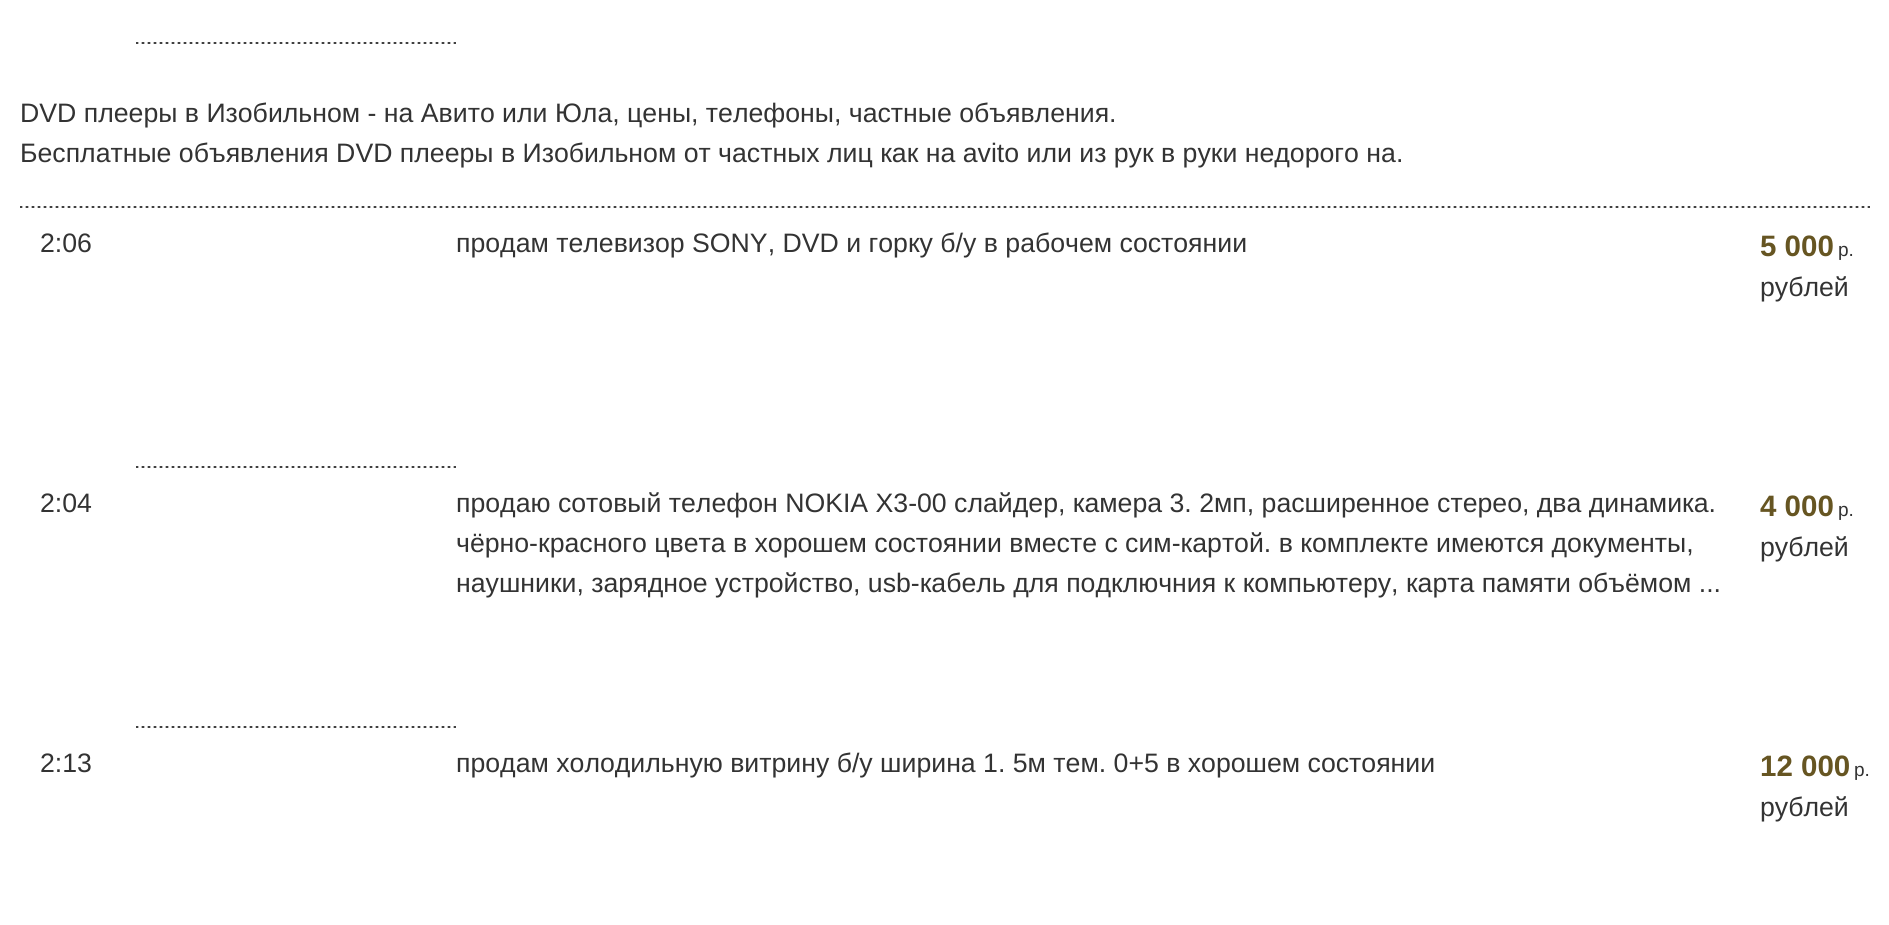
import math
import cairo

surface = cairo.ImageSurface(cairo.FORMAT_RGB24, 1889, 925)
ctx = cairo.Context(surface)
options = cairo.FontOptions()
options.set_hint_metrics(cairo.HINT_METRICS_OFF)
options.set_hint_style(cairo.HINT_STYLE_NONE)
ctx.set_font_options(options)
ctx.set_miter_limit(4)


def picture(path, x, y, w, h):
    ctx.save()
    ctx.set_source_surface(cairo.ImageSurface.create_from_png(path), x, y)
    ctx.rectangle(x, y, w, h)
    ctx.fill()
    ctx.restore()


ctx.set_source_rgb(1, 1, 1)
ctx.paint()
picture("img1.png", 136, 42, 320, 2)
picture("img2.png", 20, 206, 1850, 2)
ctx.select_font_face("Liberation Sans")
ctx.set_font_size(26.67)
ctx.set_source_rgb(0.2, 0.2, 0.2)
ctx.move_to(20, 122)
ctx.show_text("DVD плееры в Изобильном - на Авито или Юла, цены, телефоны, частные объявления.")
ctx.move_to(20, 162)
ctx.show_text("Бесплатные объявления DVD плееры в Изобильном от частных лиц как на avito или из рук в руки недорого на.")
picture("img1.png", 136, 466, 320, 2)
ctx.move_to(40, 252)
ctx.show_text("2:06")
ctx.move_to(456, 252)
ctx.show_text("продам телевизор SONY, DVD и горку б/у в рабочем состоянии")
ctx.select_font_face("Liberation Sans", cairo.FONT_SLANT_NORMAL, cairo.FONT_WEIGHT_BOLD)
ctx.set_font_size(29.5)
ctx.set_source_rgb(0.4, 0.333, 0.133)
ctx.move_to(1760, 256)
ctx.show_text("5 000")
ctx.select_font_face("Liberation Sans")
ctx.set_font_size(19)
ctx.set_source_rgb(0.2, 0.2, 0.2)
ctx.move_to(1838, 256)
ctx.show_text("р.")
ctx.set_font_size(26.67)
ctx.move_to(1760, 296)
ctx.show_text("рублей")
picture("img1.png", 136, 726, 320, 2)
ctx.move_to(40, 512)
ctx.show_text("2:04")
ctx.move_to(456, 512)
ctx.show_text("продаю сотовый телефон NOKIA X3-00 слайдер, камера 3. 2мп, расширенное стерео, два динамика.")
ctx.move_to(456, 552)
ctx.show_text("чёрно-красного цвета в хорошем состоянии вместе с сим-картой. в комплекте имеются документы,")
ctx.move_to(456, 592)
ctx.show_text("наушники, зарядное устройство, usb-кабель для подключния к компьютеру, карта памяти объёмом ...")
ctx.select_font_face("Liberation Sans", cairo.FONT_SLANT_NORMAL, cairo.FONT_WEIGHT_BOLD)
ctx.set_font_size(29.5)
ctx.set_source_rgb(0.4, 0.333, 0.133)
ctx.move_to(1760, 516)
ctx.show_text("4 000")
ctx.select_font_face("Liberation Sans")
ctx.set_font_size(19)
ctx.set_source_rgb(0.2, 0.2, 0.2)
ctx.move_to(1838, 516)
ctx.show_text("р.")
ctx.set_font_size(26.67)
ctx.move_to(1760, 556)
ctx.show_text("рублей")
ctx.move_to(40, 772)
ctx.show_text("2:13")
ctx.move_to(456, 772)
ctx.show_text("продам холодильную витрину б/у ширина 1. 5м тем. 0+5 в хорошем состоянии")
ctx.select_font_face("Liberation Sans", cairo.FONT_SLANT_NORMAL, cairo.FONT_WEIGHT_BOLD)
ctx.set_font_size(29.5)
ctx.set_source_rgb(0.4, 0.333, 0.133)
ctx.move_to(1760, 776)
ctx.show_text("12 000")
ctx.select_font_face("Liberation Sans")
ctx.set_font_size(19)
ctx.set_source_rgb(0.2, 0.2, 0.2)
ctx.move_to(1854, 776)
ctx.show_text("р.")
ctx.set_font_size(26.67)
ctx.move_to(1760, 816)
ctx.show_text("рублей")
surface.write_to_png("page.png")
